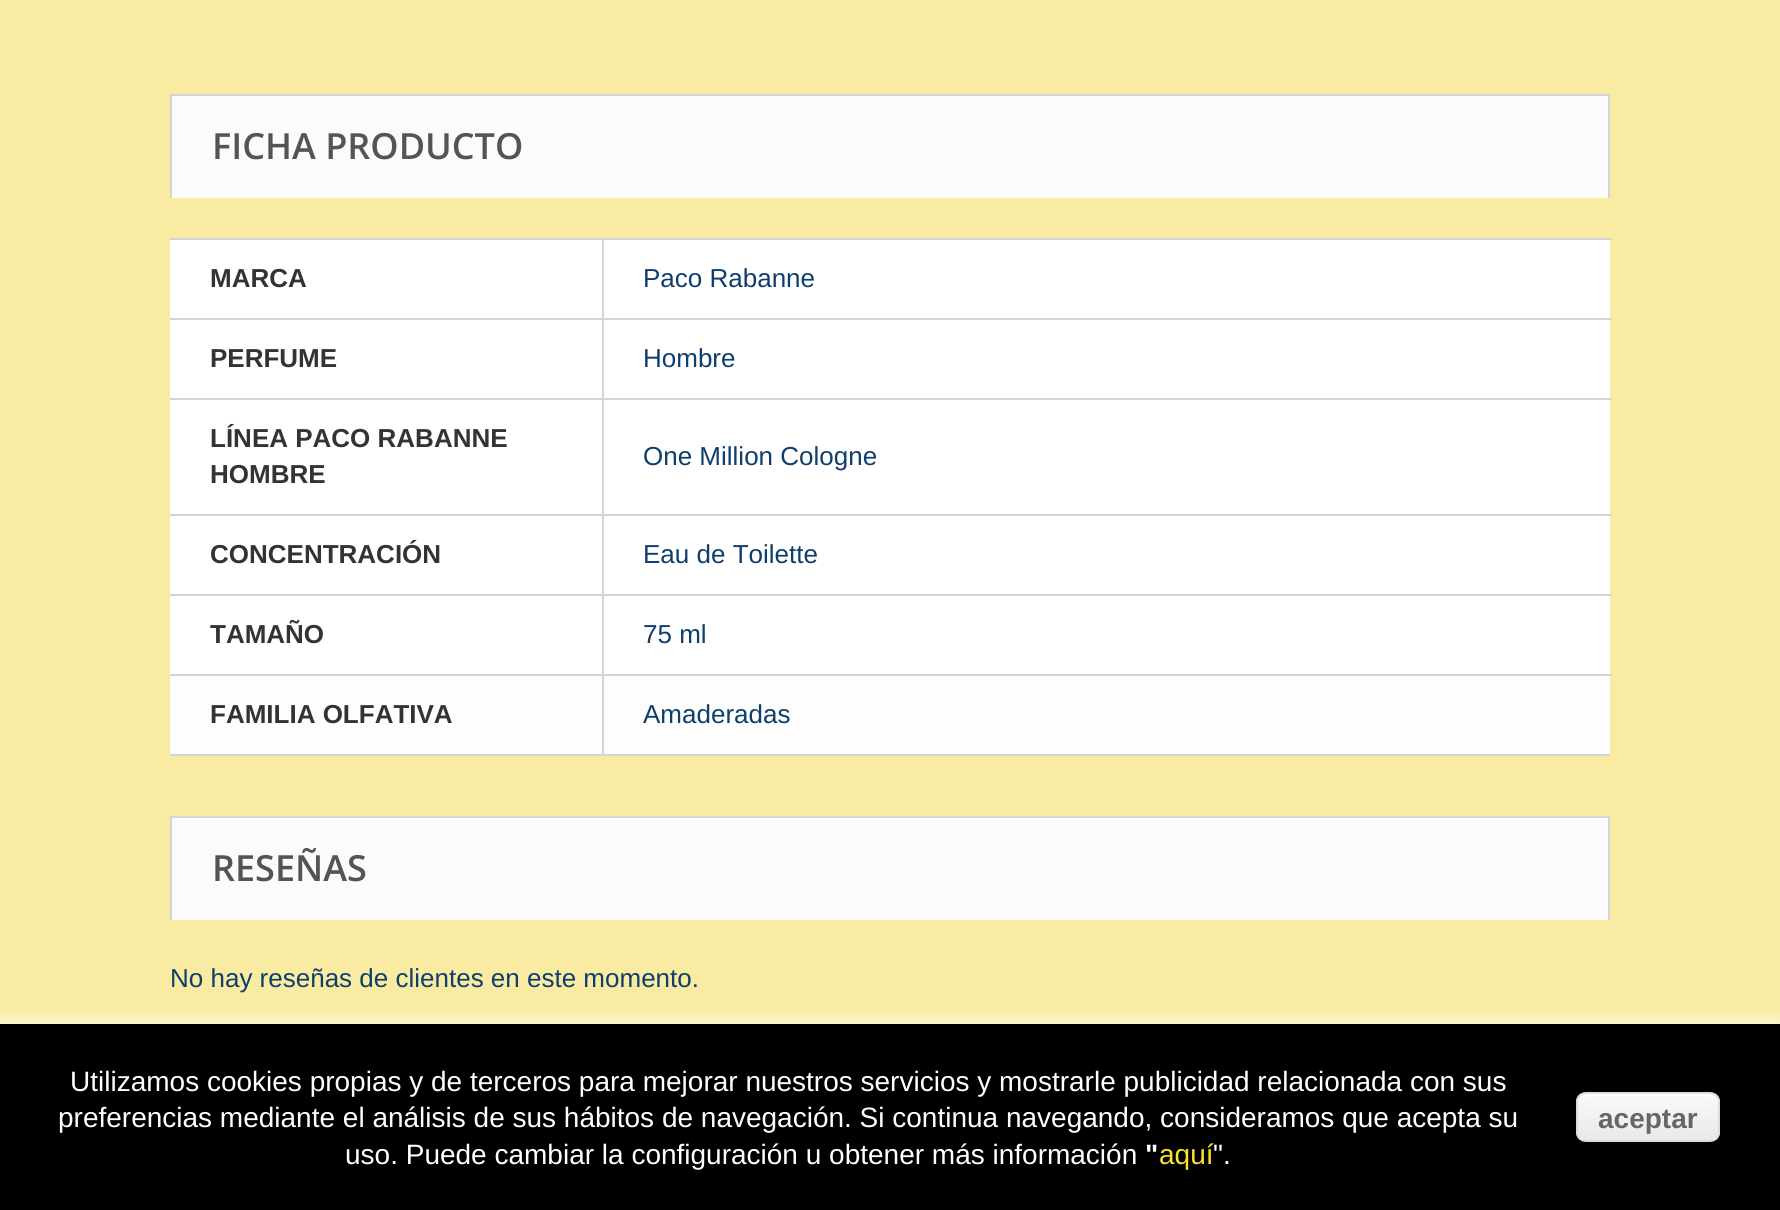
import math
import cairo

surface = cairo.ImageSurface(cairo.FORMAT_RGB24, 1780, 1210)
ctx = cairo.Context(surface)
options = cairo.FontOptions()
options.set_hint_metrics(cairo.HINT_METRICS_OFF)
options.set_hint_style(cairo.HINT_STYLE_NONE)
ctx.set_font_options(options)
ctx.set_miter_limit(4)


def round_rect(x, y, w, h, r):
    ctx.new_sub_path()
    for i, (u, v) in enumerate([(x + w - r, y + h - r), (x + r, y + h - r), (x + r, y + r), (x + w - r, y + r)]):
        ctx.arc(u, v, r, i * math.pi / 2, (i + 1) * math.pi / 2)
    ctx.close_path()


def shadow(x, y, w, h, r, blur, alpha):
    ctx.push_group_with_content(cairo.CONTENT_ALPHA)
    ctx.set_operator(cairo.OPERATOR_SOURCE)
    for i in range(15, -16, -2):
        e = blur * i / 6
        if min(w, h) + 2 * e > 0:
            ctx.set_source_rgba(0, 0, 0, alpha * math.erfc((i - 1) / 8.5) / 2)
            round_rect(x - e, y - e, w + 2 * e, h + 2 * e, max(0, min(r + e + blur * .6, min(w, h) / 2 + e)))
            ctx.fill()
    ctx.mask(ctx.pop_group())


ctx.set_source_rgb(0.976, 0.922, 0.635)
ctx.paint()
ctx.set_source_rgb(0.984, 0.984, 0.984)
ctx.rectangle(172, 96, 1436, 102)
ctx.fill()
ctx.set_source_rgb(0.839, 0.831, 0.831)
ctx.rectangle(170, 94, 1440, 2)
ctx.fill()
ctx.rectangle(1608, 94, 2, 104)
ctx.fill()
ctx.rectangle(170, 94, 2, 104)
ctx.fill()
ctx.select_font_face("Open Sans SemiBold")
ctx.set_font_size(36)
ctx.set_source_rgb(0.333, 0.329, 0.329)
ctx.move_to(212, 159)
ctx.show_text("FICHA PRODUCTO")
ctx.set_source_rgb(1, 1, 1)
ctx.rectangle(170, 240, 1440, 434)
ctx.fill()
ctx.set_source_rgb(0.839, 0.831, 0.831)
ctx.rectangle(170, 754, 1440, 2)
ctx.fill()
ctx.rectangle(170, 238, 1442, 2)
ctx.fill()
ctx.select_font_face("Liberation Sans", cairo.FONT_SLANT_NORMAL, cairo.FONT_WEIGHT_BOLD)
ctx.set_font_size(26)
ctx.set_source_rgb(0.2, 0.2, 0.2)
ctx.move_to(210, 287)
ctx.show_text("MARCA")
ctx.select_font_face("Liberation Sans")
ctx.set_source_rgb(0.055, 0.243, 0.424)
ctx.move_to(643, 287)
ctx.show_text("Paco Rabanne")
ctx.set_source_rgb(0.839, 0.831, 0.831)
ctx.rectangle(170, 318, 1442, 2)
ctx.fill()
ctx.select_font_face("Liberation Sans", cairo.FONT_SLANT_NORMAL, cairo.FONT_WEIGHT_BOLD)
ctx.set_source_rgb(0.2, 0.2, 0.2)
ctx.move_to(210, 367)
ctx.show_text("PERFUME")
ctx.select_font_face("Liberation Sans")
ctx.set_source_rgb(0.055, 0.243, 0.424)
ctx.move_to(643, 367)
ctx.show_text("Hombre")
ctx.set_source_rgb(0.839, 0.831, 0.831)
ctx.rectangle(170, 398, 1442, 2)
ctx.fill()
ctx.select_font_face("Liberation Sans", cairo.FONT_SLANT_NORMAL, cairo.FONT_WEIGHT_BOLD)
ctx.set_source_rgb(0.2, 0.2, 0.2)
ctx.move_to(210, 447)
ctx.show_text("LÍNEA PACO RABANNE")
ctx.move_to(210, 483)
ctx.show_text("HOMBRE")
ctx.select_font_face("Liberation Sans")
ctx.set_source_rgb(0.055, 0.243, 0.424)
ctx.move_to(643, 465)
ctx.show_text("One Million Cologne")
ctx.set_source_rgb(0.839, 0.831, 0.831)
ctx.rectangle(170, 514, 1442, 2)
ctx.fill()
ctx.select_font_face("Liberation Sans", cairo.FONT_SLANT_NORMAL, cairo.FONT_WEIGHT_BOLD)
ctx.set_source_rgb(0.2, 0.2, 0.2)
ctx.move_to(210, 563)
ctx.show_text("CONCENTRACIÓN")
ctx.select_font_face("Liberation Sans")
ctx.set_source_rgb(0.055, 0.243, 0.424)
ctx.move_to(643, 563)
ctx.show_text("Eau de Toilette")
ctx.set_source_rgb(0.839, 0.831, 0.831)
ctx.rectangle(170, 594, 1442, 2)
ctx.fill()
ctx.select_font_face("Liberation Sans", cairo.FONT_SLANT_NORMAL, cairo.FONT_WEIGHT_BOLD)
ctx.set_source_rgb(0.2, 0.2, 0.2)
ctx.move_to(210, 643)
ctx.show_text("TAMAÑO")
ctx.select_font_face("Liberation Sans")
ctx.set_source_rgb(0.055, 0.243, 0.424)
ctx.move_to(643, 643)
ctx.show_text("75 ml")
ctx.set_source_rgb(0.992, 0.992, 0.992)
ctx.rectangle(170, 676, 1440, 78)
ctx.fill()
ctx.set_source_rgb(0.839, 0.831, 0.831)
ctx.rectangle(170, 674, 1442, 2)
ctx.fill()
ctx.rectangle(602, 238, 2, 518)
ctx.fill()
ctx.select_font_face("Liberation Sans", cairo.FONT_SLANT_NORMAL, cairo.FONT_WEIGHT_BOLD)
ctx.set_source_rgb(0.2, 0.2, 0.2)
ctx.move_to(210, 723)
ctx.show_text("FAMILIA OLFATIVA")
ctx.select_font_face("Liberation Sans")
ctx.set_source_rgb(0.055, 0.243, 0.424)
ctx.move_to(643, 723)
ctx.show_text("Amaderadas")
ctx.set_source_rgb(0.984, 0.984, 0.984)
ctx.rectangle(172, 818, 1436, 102)
ctx.fill()
ctx.set_source_rgb(0.839, 0.831, 0.831)
ctx.rectangle(170, 816, 1440, 2)
ctx.fill()
ctx.rectangle(1608, 816, 2, 104)
ctx.fill()
ctx.rectangle(170, 816, 2, 104)
ctx.fill()
ctx.select_font_face("Open Sans SemiBold")
ctx.set_font_size(36)
ctx.set_source_rgb(0.333, 0.329, 0.329)
ctx.move_to(212, 881)
ctx.show_text("RESEÑAS")
ctx.select_font_face("Liberation Sans")
ctx.set_font_size(26)
ctx.set_source_rgb(0.055, 0.243, 0.424)
ctx.move_to(170, 987)
ctx.show_text("No hay reseñas de clientes en este momento.")
ctx.set_source_rgb(1, 1, 1)
shadow(0, 1024, 1780, 186, 0, 10, 1)
ctx.set_source_rgb(0, 0, 0)
ctx.rectangle(0, 1024, 1780, 186)
ctx.fill()
ctx.set_font_size(28)
ctx.set_source_rgb(1, 1, 1)
ctx.move_to(70, 1091)
ctx.show_text("Utilizamos cookies propias y de terceros para mejorar nuestros servicios y mostrarle publicidad relacionada con sus")
ctx.move_to(58, 1127)
ctx.show_text("preferencias mediante el análisis de sus hábitos de navegación. Si continua navegando, consideramos que acepta su")
ctx.move_to(345, 1164)
ctx.show_text("uso. Puede cambiar la configuración u obtener más información")
ctx.select_font_face("Liberation Sans", cairo.FONT_SLANT_NORMAL, cairo.FONT_WEIGHT_BOLD)
ctx.move_to(1145, 1164)
ctx.show_text("\"")
ctx.select_font_face("Liberation Sans")
ctx.set_source_rgb(0.984, 0.89, 0.161)
ctx.move_to(1159, 1164)
ctx.show_text("aquí")
ctx.set_source_rgb(1, 1, 1)
ctx.move_to(1213, 1164)
ctx.show_text("\".")
ctx.save()
round_rect(1576, 1092, 144, 50, 10)
ctx.clip()
gradient = cairo.LinearGradient(1578, 1094, 1578, 1140)
gradient.add_color_stop_rgba(0.05, 0.976, 0.976, 0.976, 1)
gradient.add_color_stop_rgba(1, 0.914, 0.914, 0.914, 1)
ctx.set_source(gradient)
ctx.rectangle(1576, 1094, 144, 46)
ctx.fill()
ctx.restore()
ctx.new_path()
ctx.move_to(1586, 1096)
ctx.line_to(1710, 1096)
ctx.curve_to(1714, 1096, 1718, 1100, 1718, 1104)
ctx.line_to(1718, 1102)
ctx.curve_to(1718, 1098, 1714, 1094, 1710, 1094)
ctx.line_to(1586, 1094)
ctx.curve_to(1582, 1094, 1578, 1098, 1578, 1102)
ctx.line_to(1578, 1104)
ctx.curve_to(1578, 1100, 1582, 1096, 1586, 1096)
ctx.close_path()
ctx.fill()
round_rect(1577, 1093, 142, 48, 9)
ctx.set_source_rgb(0.863, 0.863, 0.863)
ctx.stroke()
ctx.select_font_face("Liberation Sans", cairo.FONT_SLANT_NORMAL, cairo.FONT_WEIGHT_BOLD)
ctx.set_source_rgb(0.4, 0.4, 0.4)
ctx.move_to(1598, 1128)
ctx.show_text("aceptar")
surface.write_to_png("page.png")
